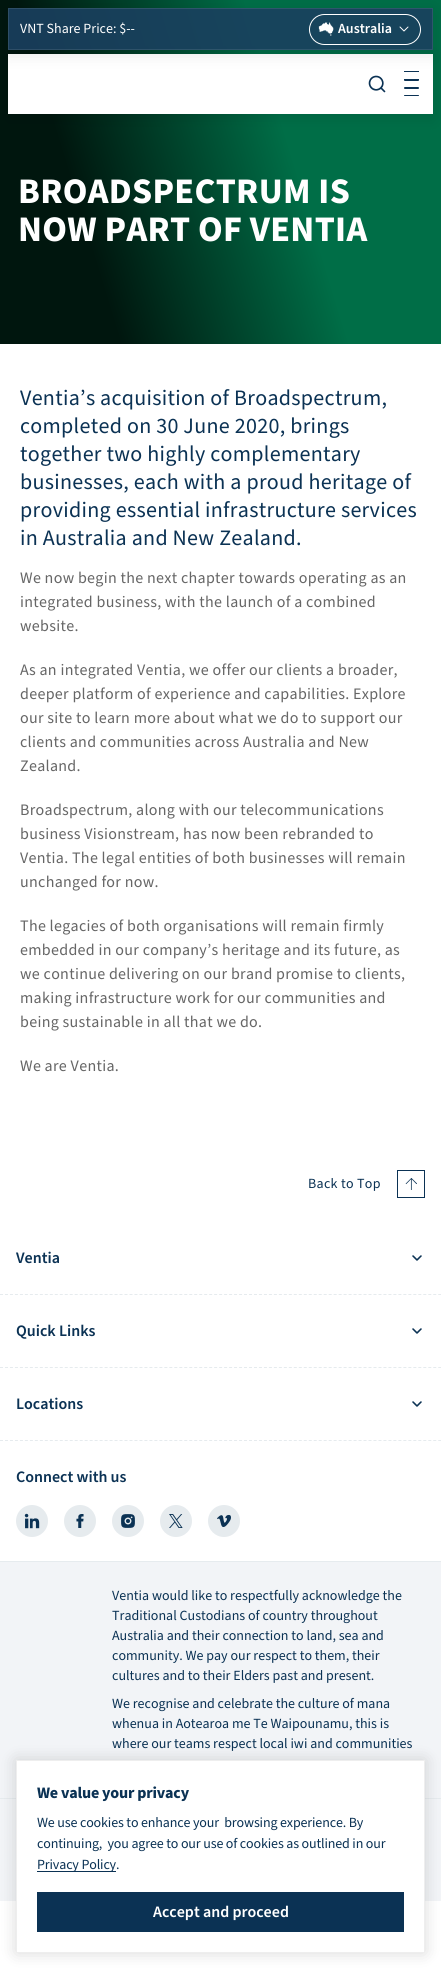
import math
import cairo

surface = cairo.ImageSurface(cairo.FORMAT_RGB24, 441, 1969)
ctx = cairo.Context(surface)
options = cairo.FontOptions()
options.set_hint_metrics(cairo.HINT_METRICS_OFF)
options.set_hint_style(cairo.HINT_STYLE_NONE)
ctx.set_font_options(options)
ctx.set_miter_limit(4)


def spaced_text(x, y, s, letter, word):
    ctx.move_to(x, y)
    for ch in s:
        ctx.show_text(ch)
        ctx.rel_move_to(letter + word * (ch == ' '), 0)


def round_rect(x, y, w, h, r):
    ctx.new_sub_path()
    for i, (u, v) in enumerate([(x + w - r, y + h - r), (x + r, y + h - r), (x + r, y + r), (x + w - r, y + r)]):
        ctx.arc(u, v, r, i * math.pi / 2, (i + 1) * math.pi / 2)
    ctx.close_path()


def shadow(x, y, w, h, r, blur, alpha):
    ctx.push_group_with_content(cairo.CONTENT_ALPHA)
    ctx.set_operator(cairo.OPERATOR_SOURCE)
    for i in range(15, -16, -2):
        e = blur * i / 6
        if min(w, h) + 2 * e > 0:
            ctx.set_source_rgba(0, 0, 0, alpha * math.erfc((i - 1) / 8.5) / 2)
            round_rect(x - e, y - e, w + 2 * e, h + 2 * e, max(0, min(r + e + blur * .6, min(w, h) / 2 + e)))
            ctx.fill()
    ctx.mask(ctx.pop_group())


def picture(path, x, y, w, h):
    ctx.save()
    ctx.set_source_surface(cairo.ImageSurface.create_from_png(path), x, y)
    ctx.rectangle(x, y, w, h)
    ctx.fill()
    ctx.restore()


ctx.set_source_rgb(1, 1, 1)
ctx.paint()
gradient = cairo.LinearGradient(-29, 248, 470, 96)
gradient.add_color_stop_rgba(0.22, 0, 0.086, 0.055, 1)
gradient.add_color_stop_rgba(0.64, 0, 0.431, 0.278, 1)
ctx.set_source(gradient)
ctx.rectangle(0, 0, 441, 344)
ctx.fill()
ctx.set_source_rgb(0, 0, 0)
shadow(8, 58, 425, 60, 0, 8, 0.1)
ctx.set_source_rgb(1, 1, 1)
ctx.rectangle(8, 54, 425, 60)
ctx.fill()
picture("img3.png", 368, 75, 18, 18)
ctx.set_source_rgb(0.043, 0.196, 0.329)
ctx.rectangle(404, 71, 15, 1)
ctx.fill()
ctx.save()
ctx.set_fill_rule(cairo.FILL_RULE_EVEN_ODD)
ctx.new_path()
ctx.move_to(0, 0)
ctx.line_to(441, 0)
ctx.line_to(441, 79)
ctx.line_to(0, 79)
ctx.close_path()
ctx.move_to(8, 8)
ctx.line_to(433, 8)
ctx.line_to(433, 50)
ctx.line_to(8, 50)
ctx.close_path()
ctx.clip()
ctx.set_source_rgb(0, 0, 0)
shadow(8, 12, 425, 42, 0, 8, 0.1)
ctx.restore()
ctx.set_source_rgba(0.043, 0.196, 0.329, 0.9)
ctx.rectangle(8, 8, 425, 42)
ctx.fill()
ctx.set_source_rgba(1, 1, 1, 0.06)
ctx.rectangle(8, 8, 425, 42)
ctx.fill()
ctx.rectangle(8.5, 8.5, 424, 41)
ctx.set_source_rgba(1, 1, 1, 0.1)
ctx.set_line_width(1)
ctx.stroke()
ctx.select_font_face("Source Sans Pro")
ctx.set_font_size(14)
ctx.set_source_rgb(1, 1, 1)
ctx.move_to(20, 33)
ctx.show_text("VNT Share Price: $--")
round_rect(309.5, 14.5, 111, 30, 15)
ctx.stroke()
picture("img1.png", 318, 22, 16, 14)
ctx.select_font_face("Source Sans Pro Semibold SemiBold")
ctx.move_to(338, 33)
ctx.show_text("Australia")
picture("img2.png", 399, 26, 10, 6)
ctx.set_source_rgb(0.043, 0.196, 0.329)
round_rect(404, 79, 15, 2, 1)
ctx.fill()
round_rect(404, 87, 15, 2, 1)
ctx.fill()
ctx.rectangle(404, 79, 15, 1)
ctx.fill()
round_rect(404, 95, 15, 1, 0.5)
ctx.fill()
ctx.select_font_face("Source Sans Pro", cairo.FONT_SLANT_NORMAL, cairo.FONT_WEIGHT_BOLD)
ctx.set_font_size(36)
ctx.set_source_rgb(1, 1, 1)
spaced_text(18, 203, "BROADSPECTRUM IS", 0.3, 0)
spaced_text(18, 241, "NOW PART OF VENTIA", 0.3, 0)
ctx.select_font_face("Source Sans Pro")
ctx.set_font_size(22)
ctx.set_source_rgb(0.043, 0.196, 0.329)
spaced_text(20, 405, "Ventia’s acquisition of Broadspectrum,", 0.3, 0)
spaced_text(20, 433, "completed on 30 June 2020, brings", 0.3, 0)
spaced_text(20, 461, "together two highly complementary", 0.3, 0)
spaced_text(20, 489, "businesses, each with a proud heritage of", 0.3, 0)
spaced_text(20, 517, "providing essential infrastructure services", 0.3, 0)
spaced_text(20, 545, "in Australia and New Zealand.", 0.3, 0)
ctx.set_font_size(16)
ctx.set_source_rgb(0.4, 0.4, 0.4)
spaced_text(20, 583, "We now begin the next chapter towards operating as an", 0.3, 0)
spaced_text(20, 607, "integrated business, with the launch of a combined", 0.3, 0)
spaced_text(20, 631, "website.", 0.3, 0)
spaced_text(20, 675, "As an integrated Ventia, we offer our clients a broader,", 0.3, 0)
spaced_text(20, 699, "deeper platform of experience and capabilities. Explore", 0.3, 0)
spaced_text(20, 723, "our site to learn more about what we do to support our", 0.3, 0)
spaced_text(20, 747, "clients and communities across Australia and New", 0.3, 0)
spaced_text(20, 771, "Zealand.", 0.3, 0)
spaced_text(20, 815, "Broadspectrum, along with our telecommunications", 0.3, 0)
spaced_text(20, 839, "business Visionstream, has now been rebranded to", 0.3, 0)
spaced_text(20, 863, "Ventia. The legal entities of both businesses will remain", 0.3, 0)
spaced_text(20, 887, "unchanged for now.", 0.3, 0)
spaced_text(20, 931, "The legacies of both organisations will remain firmly", 0.3, 0)
spaced_text(20, 955, "embedded in our company’s heritage and its future, as", 0.3, 0)
spaced_text(20, 979, "we continue delivering on our brand promise to clients,", 0.3, 0)
spaced_text(20, 1003, "making infrastructure work for our communities and", 0.3, 0)
spaced_text(20, 1027, "being sustainable in all that we do.", 0.3, 0)
spaced_text(20, 1071, "We are Ventia.", 0.3, 0)
ctx.set_font_size(14)
ctx.set_source_rgb(0.043, 0.196, 0.329)
spaced_text(308, 1188, "Back to Top", 0.3, 0)
ctx.rectangle(397.5, 1170.5, 27, 27)
ctx.stroke()
picture("img4.png", 405, 1178, 12, 12)
ctx.new_path()
ctx.move_to(0, 1294.5)
ctx.line_to(441, 1294.5)
ctx.set_source_rgb(0.902, 0.918, 0.933)
ctx.set_dash([3, 1.98])
ctx.stroke()
ctx.select_font_face("Source Sans Pro Semibold SemiBold")
ctx.set_font_size(16)
ctx.set_source_rgb(0.043, 0.196, 0.329)
ctx.move_to(16, 1263)
ctx.show_text("Ventia")
picture("img5.png", 412, 1255, 10, 6)
ctx.new_path()
ctx.move_to(0, 1367.5)
ctx.line_to(441, 1367.5)
ctx.set_source_rgb(0.902, 0.918, 0.933)
ctx.stroke()
ctx.set_source_rgb(0.043, 0.196, 0.329)
ctx.move_to(16, 1336)
ctx.show_text("Quick Links")
picture("img5.png", 412, 1328, 10, 6)
ctx.new_path()
ctx.move_to(0, 1440.5)
ctx.line_to(441, 1440.5)
ctx.set_source_rgb(0.902, 0.918, 0.933)
ctx.stroke()
ctx.set_source_rgb(0.043, 0.196, 0.329)
ctx.move_to(16, 1409)
ctx.show_text("Locations")
picture("img5.png", 412, 1401, 10, 6)
ctx.move_to(16, 1482)
ctx.show_text("Connect with us")
ctx.set_source_rgb(0.902, 0.918, 0.933)
ctx.new_path()
ctx.arc(32, 1521, 16, 0, 2 * math.pi)
ctx.fill()
picture("img6.png", 24, 1513, 16, 16)
ctx.arc(80, 1521, 16, 0, 2 * math.pi)
ctx.fill()
picture("img7.png", 76, 1514, 8, 14)
ctx.arc(128, 1521, 16, 0, 2 * math.pi)
ctx.fill()
picture("img8.png", 121, 1514, 14, 14)
ctx.arc(176, 1521, 16, 0, 2 * math.pi)
ctx.fill()
picture("img9.png", 169, 1514, 14, 14)
ctx.arc(224, 1521, 16, 0, 2 * math.pi)
ctx.fill()
picture("img10.png", 217, 1514, 14, 13)
ctx.set_source_rgb(0.949, 0.957, 0.965)
ctx.rectangle(0, 1562, 441, 339)
ctx.fill()
ctx.set_source_rgb(0.902, 0.918, 0.933)
ctx.rectangle(0, 1561, 441, 1)
ctx.fill()
ctx.select_font_face("Source Sans Pro")
ctx.set_font_size(14)
ctx.set_source_rgb(0.043, 0.196, 0.329)
ctx.move_to(112, 1600)
ctx.show_text("Ventia would like to respectfully acknowledge the")
ctx.move_to(112, 1620)
ctx.show_text("Traditional Custodians of country throughout")
ctx.move_to(112, 1640)
ctx.show_text("Australia and their connection to land, sea and")
ctx.move_to(112, 1660)
ctx.show_text("community. We pay our respect to them, their")
ctx.move_to(112, 1680)
ctx.show_text("cultures and to their Elders past and present.")
ctx.move_to(112, 1708)
ctx.show_text("We recognise and celebrate the culture of mana")
ctx.move_to(112, 1728)
ctx.show_text("whenua in Aotearoa me Te Waipounamu, this is")
ctx.move_to(112, 1748)
ctx.show_text("where our teams respect local iwi and communities")
ctx.set_source_rgb(0.902, 0.918, 0.933)
ctx.rectangle(0, 1798, 441, 1)
ctx.fill()
ctx.set_source_rgb(0, 0, 0)
shadow(16, 1760, 409, 193, 0, 8, 0.15)
ctx.set_source_rgb(1, 1, 1)
ctx.rectangle(16.5, 1760.5, 408, 192)
ctx.fill_preserve()
ctx.set_source_rgb(0.933, 0.933, 0.933)
ctx.set_dash([])
ctx.stroke()
ctx.select_font_face("Source Sans Pro", cairo.FONT_SLANT_NORMAL, cairo.FONT_WEIGHT_BOLD)
ctx.set_font_size(16)
ctx.set_source_rgb(0.043, 0.196, 0.329)
spaced_text(37, 1798, "We value your privacy", -0.2, 0)
ctx.select_font_face("Source Sans Pro")
ctx.set_font_size(14)
spaced_text(37, 1827, "We use cookies to enhance your  browsing experience. By", -0.15, 0)
spaced_text(37, 1848, "continuing,  you agree to our use of cookies as outlined in our", -0.15, 0)
ctx.rectangle(37, 1871, 79, 1)
ctx.fill()
spaced_text(37, 1869, "Privacy Policy", -0.15, 0)
spaced_text(116, 1869, ".", -0.15, 0)
ctx.rectangle(37, 1892, 367, 40)
ctx.fill()
ctx.select_font_face("Source Sans Pro Semibold SemiBold")
ctx.set_font_size(16)
ctx.set_source_rgb(1, 1, 1)
ctx.move_to(153, 1917)
ctx.show_text("Accept and proceed")
surface.write_to_png("page.png")
